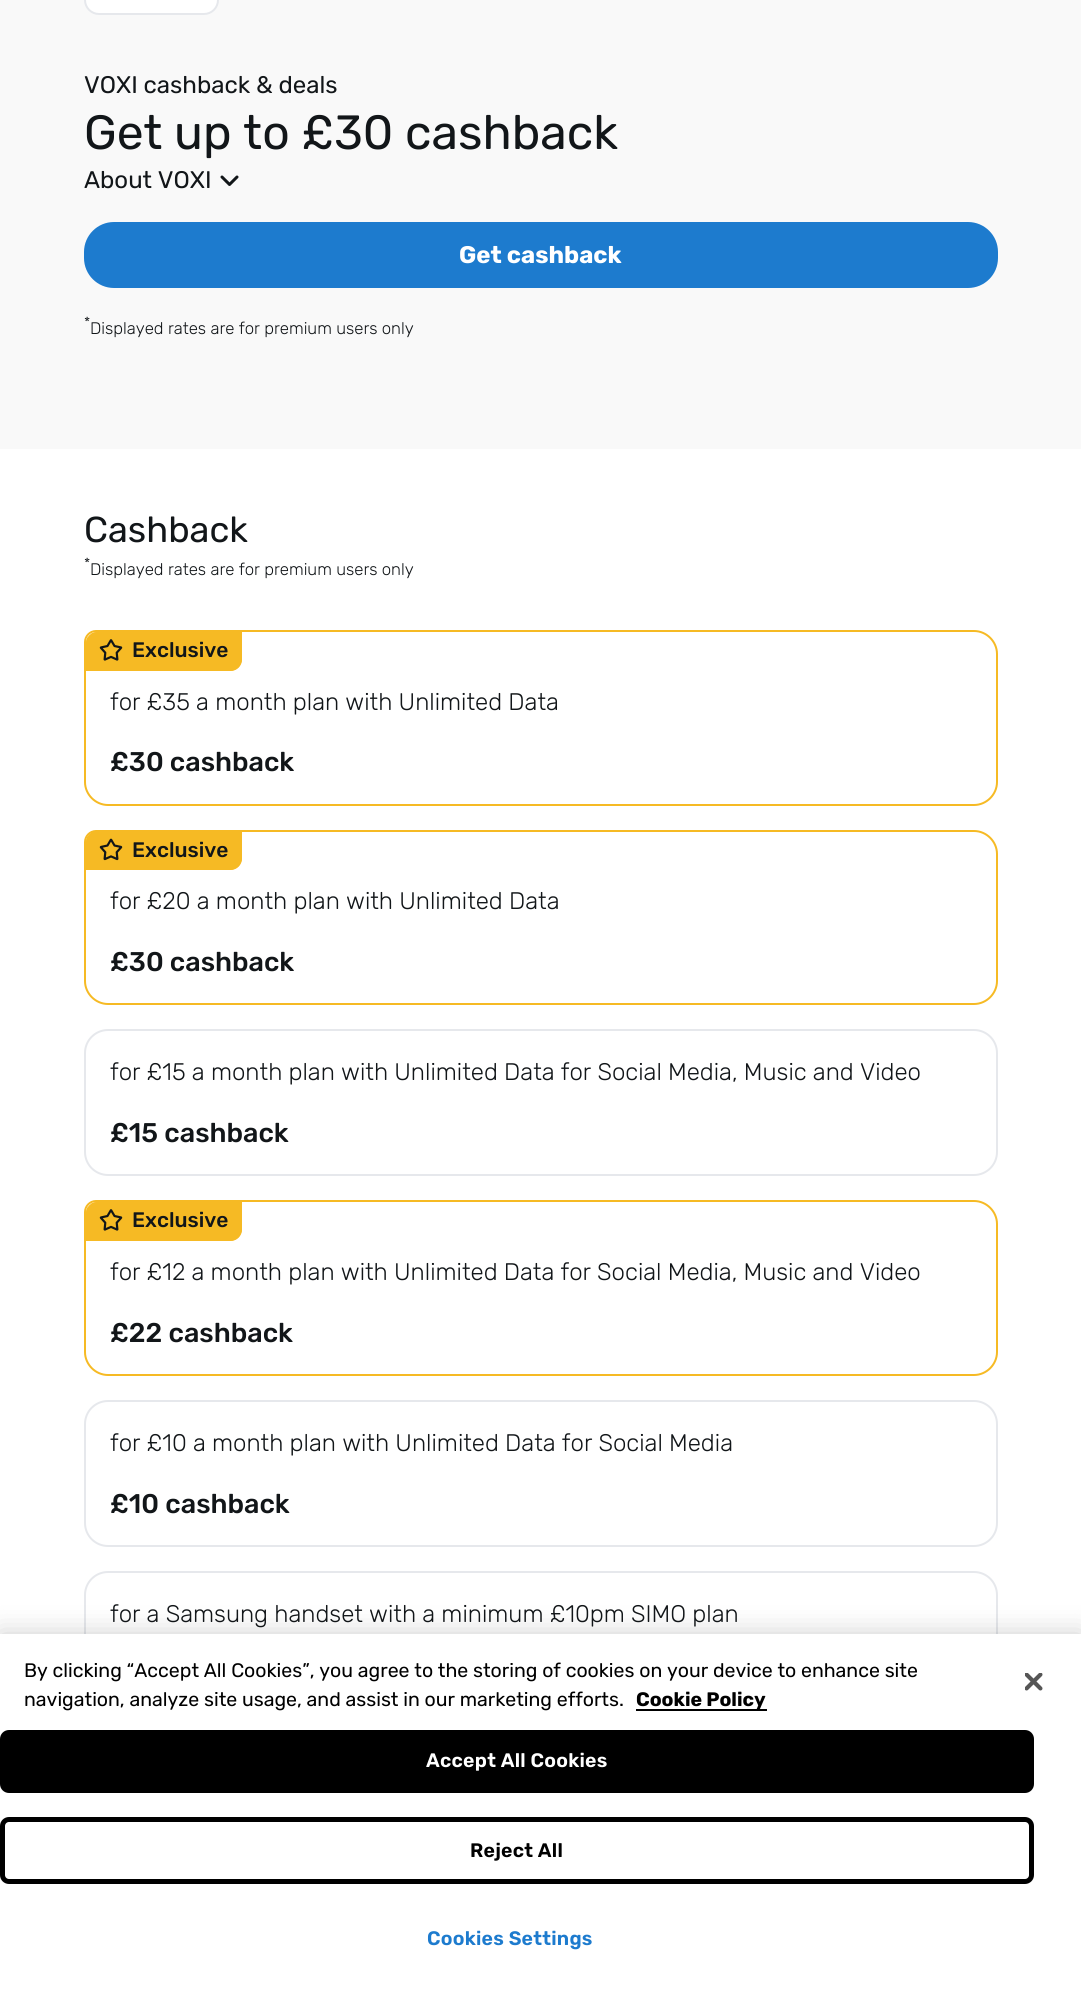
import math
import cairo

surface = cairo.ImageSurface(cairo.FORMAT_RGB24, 1081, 1991)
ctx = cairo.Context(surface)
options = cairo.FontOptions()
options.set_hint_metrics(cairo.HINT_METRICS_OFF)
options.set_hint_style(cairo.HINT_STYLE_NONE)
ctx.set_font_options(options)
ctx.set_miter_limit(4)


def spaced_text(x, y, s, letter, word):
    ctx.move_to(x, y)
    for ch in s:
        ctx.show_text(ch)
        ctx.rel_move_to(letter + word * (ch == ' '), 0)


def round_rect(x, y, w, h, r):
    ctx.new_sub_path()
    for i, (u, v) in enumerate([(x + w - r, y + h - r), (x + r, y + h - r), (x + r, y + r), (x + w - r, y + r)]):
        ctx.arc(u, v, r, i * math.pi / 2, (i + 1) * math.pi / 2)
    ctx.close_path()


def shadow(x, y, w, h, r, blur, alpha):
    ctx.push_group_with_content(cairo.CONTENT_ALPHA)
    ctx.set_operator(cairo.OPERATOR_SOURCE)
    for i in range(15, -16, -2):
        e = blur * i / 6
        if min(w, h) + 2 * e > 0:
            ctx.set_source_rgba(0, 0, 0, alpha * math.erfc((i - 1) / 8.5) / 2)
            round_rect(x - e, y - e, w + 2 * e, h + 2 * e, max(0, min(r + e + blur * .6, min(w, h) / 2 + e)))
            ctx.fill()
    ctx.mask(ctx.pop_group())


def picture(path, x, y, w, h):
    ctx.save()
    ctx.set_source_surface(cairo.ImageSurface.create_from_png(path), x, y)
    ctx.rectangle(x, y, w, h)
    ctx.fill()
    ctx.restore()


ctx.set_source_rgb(1, 1, 1)
ctx.paint()
ctx.set_source_rgb(0.976, 0.976, 0.976)
ctx.rectangle(0, 0, 1081, 449)
ctx.fill()
ctx.set_source_rgb(1, 1, 1)
round_rect(85, -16, 133, 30, 14)
ctx.fill_preserve()
ctx.set_source_rgb(0.902, 0.91, 0.925)
ctx.stroke()
ctx.select_font_face("Rubik")
ctx.set_font_size(24)
ctx.set_source_rgb(0.071, 0.086, 0.098)
ctx.move_to(84, 93)
ctx.show_text("VOXI cashback & deals")
ctx.set_font_size(48)
ctx.move_to(84, 149)
ctx.show_text("Get up to £30 cashback")
ctx.set_font_size(24)
ctx.move_to(84, 188)
ctx.show_text("About VOXI")
picture("img1.png", 220, 175, 19, 11)
ctx.set_source_rgb(0.114, 0.482, 0.808)
round_rect(84, 222, 914, 66, 30)
ctx.fill()
ctx.select_font_face("Rubik", cairo.FONT_SLANT_NORMAL, cairo.FONT_WEIGHT_BOLD)
ctx.set_source_rgb(1, 1, 1)
ctx.move_to(459, 263)
ctx.show_text("Get cashback")
ctx.select_font_face("Rubik Light")
ctx.set_font_size(14)
ctx.set_source_rgb(0.071, 0.086, 0.098)
ctx.move_to(84, 327)
ctx.show_text("*")
ctx.set_font_size(16.75)
ctx.move_to(90, 334)
ctx.show_text("Displayed rates are for premium users only")
ctx.select_font_face("Rubik")
ctx.set_font_size(36)
ctx.move_to(84, 542)
ctx.show_text("Cashback")
ctx.select_font_face("Rubik Light")
ctx.set_font_size(14)
ctx.move_to(84, 568)
ctx.show_text("*")
ctx.set_font_size(16.75)
ctx.move_to(90, 575)
ctx.show_text("Displayed rates are for premium users only")
ctx.new_path()
ctx.move_to(96, 631)
ctx.line_to(974, 631)
ctx.curve_to(986.5, 631, 997, 641.5, 997, 654)
ctx.line_to(997, 782)
ctx.curve_to(997, 794.5, 986.5, 805, 974, 805)
ctx.line_to(108, 805)
ctx.curve_to(95.5, 805, 85, 794.5, 85, 782)
ctx.line_to(85, 642)
ctx.curve_to(85, 636, 90, 631, 96, 631)
ctx.close_path()
ctx.set_source_rgb(0.961, 0.729, 0.141)
ctx.stroke()
ctx.new_path()
ctx.move_to(97, 632)
ctx.line_to(242, 632)
ctx.line_to(242, 659)
ctx.curve_to(242, 665.5, 236.5, 671, 230, 671)
ctx.line_to(86, 671)
ctx.line_to(86, 643)
ctx.curve_to(86, 637, 91, 632, 97, 632)
ctx.close_path()
ctx.fill()
ctx.new_path()
ctx.move_to(97, 632)
ctx.curve_to(95, 632, 92, 633, 91, 634)
ctx.line_to(240, 634)
ctx.line_to(240, 659)
ctx.curve_to(240, 665, 236, 669, 230, 669)
ctx.line_to(88, 669)
ctx.line_to(88, 637)
ctx.curve_to(87, 638, 86, 641, 86, 643)
ctx.line_to(86, 671)
ctx.line_to(230, 671)
ctx.curve_to(237, 671, 242, 666, 242, 659)
ctx.line_to(242, 632)
ctx.close_path()
ctx.fill()
picture("img2.png", 99, 639, 24, 22)
ctx.select_font_face("Rubik Medium")
ctx.set_font_size(21)
ctx.set_source_rgb(0.071, 0.086, 0.098)
ctx.move_to(132, 657)
ctx.show_text("Exclusive")
ctx.select_font_face("Rubik Light")
ctx.set_font_size(24)
ctx.move_to(110, 710)
ctx.show_text("for £35 a month plan with Unlimited Data")
ctx.select_font_face("Rubik Medium")
ctx.set_font_size(27)
ctx.move_to(110, 771)
ctx.show_text("£30 cashback")
ctx.new_path()
ctx.move_to(96, 831)
ctx.line_to(974, 831)
ctx.curve_to(986.5, 831, 997, 841.5, 997, 854)
ctx.line_to(997, 981)
ctx.curve_to(997, 993.5, 986.5, 1004, 974, 1004)
ctx.line_to(108, 1004)
ctx.curve_to(95.5, 1004, 85, 993.5, 85, 981)
ctx.line_to(85, 842)
ctx.curve_to(85, 836, 90, 831, 96, 831)
ctx.close_path()
ctx.set_source_rgb(0.961, 0.729, 0.141)
ctx.stroke()
ctx.new_path()
ctx.move_to(97, 831)
ctx.line_to(242, 831)
ctx.line_to(242, 858)
ctx.curve_to(242, 864.5, 236.5, 870, 230, 870)
ctx.line_to(86, 870)
ctx.line_to(86, 842)
ctx.curve_to(86, 836, 91, 831, 97, 831)
ctx.close_path()
ctx.fill()
ctx.new_path()
ctx.move_to(97, 831)
ctx.curve_to(95, 831, 92, 832, 91, 833)
ctx.line_to(240, 833)
ctx.line_to(240, 858)
ctx.curve_to(240, 864, 236, 868, 230, 868)
ctx.line_to(88, 868)
ctx.line_to(88, 836)
ctx.curve_to(87, 837, 86, 840, 86, 842)
ctx.line_to(86, 870)
ctx.line_to(230, 870)
ctx.curve_to(237, 870, 242, 865, 242, 858)
ctx.line_to(242, 831)
ctx.close_path()
ctx.fill()
picture("img3.png", 99, 838, 24, 23)
ctx.set_font_size(21)
ctx.set_source_rgb(0.071, 0.086, 0.098)
ctx.move_to(132, 857)
ctx.show_text("Exclusive")
ctx.select_font_face("Rubik Light")
ctx.set_font_size(24)
ctx.move_to(110, 909)
ctx.show_text("for £20 a month plan with Unlimited Data")
ctx.select_font_face("Rubik Medium")
ctx.set_font_size(27)
ctx.move_to(110, 971)
ctx.show_text("£30 cashback")
round_rect(85, 1030, 912, 145, 23)
ctx.set_source_rgb(0.902, 0.91, 0.925)
ctx.stroke()
ctx.select_font_face("Rubik Light")
ctx.set_font_size(24)
ctx.set_source_rgb(0.071, 0.086, 0.098)
ctx.move_to(110, 1080)
ctx.show_text("for £15 a month plan with Unlimited Data for Social Media, Music and Video")
ctx.select_font_face("Rubik Medium")
ctx.set_font_size(27)
ctx.move_to(110, 1142)
ctx.show_text("£15 cashback")
ctx.new_path()
ctx.move_to(96, 1201)
ctx.line_to(974, 1201)
ctx.curve_to(986.5, 1201, 997, 1211.5, 997, 1224)
ctx.line_to(997, 1352)
ctx.curve_to(997, 1364.5, 986.5, 1375, 974, 1375)
ctx.line_to(108, 1375)
ctx.curve_to(95.5, 1375, 85, 1364.5, 85, 1352)
ctx.line_to(85, 1212)
ctx.curve_to(85, 1206, 90, 1201, 96, 1201)
ctx.close_path()
ctx.set_source_rgb(0.961, 0.729, 0.141)
ctx.stroke()
ctx.new_path()
ctx.move_to(97, 1202)
ctx.line_to(242, 1202)
ctx.line_to(242, 1229)
ctx.curve_to(242, 1235.5, 236.5, 1241, 230, 1241)
ctx.line_to(86, 1241)
ctx.line_to(86, 1213)
ctx.curve_to(86, 1207, 91, 1202, 97, 1202)
ctx.close_path()
ctx.fill()
ctx.new_path()
ctx.move_to(97, 1202)
ctx.curve_to(95, 1202, 92, 1203, 91, 1204)
ctx.line_to(240, 1204)
ctx.line_to(240, 1229)
ctx.curve_to(240, 1235, 236, 1239, 230, 1239)
ctx.line_to(88, 1239)
ctx.line_to(88, 1207)
ctx.curve_to(87, 1208, 86, 1211, 86, 1213)
ctx.line_to(86, 1241)
ctx.line_to(230, 1241)
ctx.curve_to(237, 1241, 242, 1236, 242, 1229)
ctx.line_to(242, 1202)
ctx.close_path()
ctx.fill()
picture("img2.png", 99, 1209, 24, 22)
ctx.set_font_size(21)
ctx.set_source_rgb(0.071, 0.086, 0.098)
ctx.move_to(132, 1227)
ctx.show_text("Exclusive")
ctx.select_font_face("Rubik Light")
ctx.set_font_size(24)
ctx.move_to(110, 1280)
ctx.show_text("for £12 a month plan with Unlimited Data for Social Media, Music and Video")
ctx.select_font_face("Rubik Medium")
ctx.set_font_size(27)
ctx.move_to(110, 1342)
ctx.show_text("£22 cashback")
round_rect(85, 1401, 912, 145, 23)
ctx.set_source_rgb(0.902, 0.91, 0.925)
ctx.stroke()
ctx.select_font_face("Rubik Light")
ctx.set_font_size(24)
ctx.set_source_rgb(0.071, 0.086, 0.098)
ctx.move_to(110, 1451)
ctx.show_text("for £10 a month plan with Unlimited Data for Social Media")
ctx.select_font_face("Rubik Medium")
ctx.set_font_size(27)
ctx.move_to(110, 1513)
ctx.show_text("£10 cashback")
round_rect(85, 1572, 912, 145, 23)
ctx.set_source_rgb(0.902, 0.91, 0.925)
ctx.stroke()
ctx.select_font_face("Rubik Light")
ctx.set_font_size(24)
ctx.set_source_rgb(0.071, 0.086, 0.098)
ctx.move_to(110, 1622)
ctx.show_text("for a Samsung handset with a minimum £10pm SIMO plan")
ctx.set_source_rgb(0, 0, 0)
shadow(0, 1634, 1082, 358, 0, 13.5, 0.2)
ctx.set_source_rgb(1, 1, 1)
ctx.rectangle(0, 1634, 1081, 357)
ctx.fill()
ctx.select_font_face("Rubik")
ctx.set_font_size(19.5)
ctx.set_source_rgb(0, 0, 0)
ctx.move_to(24, 1677)
ctx.show_text("By clicking “Accept All Cookies”, you agree to the storing of cookies on your device to enhance site")
ctx.move_to(24, 1706)
ctx.show_text("navigation, analyze site usage, and assist in our marketing efforts.")
ctx.rectangle(636, 1709, 131, 2)
ctx.fill()
ctx.select_font_face("Rubik", cairo.FONT_SLANT_NORMAL, cairo.FONT_WEIGHT_BOLD)
ctx.move_to(636, 1706)
ctx.show_text("Cookie Policy")
round_rect(1, 1731, 1032, 61, 8)
ctx.fill_preserve()
ctx.stroke()
ctx.select_font_face("Rubik SemiBold")
ctx.set_source_rgb(1, 1, 1)
spaced_text(426, 1767, "Accept All Cookies", 0.25, 0)
round_rect(2.5, 1819.5, 1029, 62, 6.5)
ctx.set_source_rgb(0, 0, 0)
ctx.set_line_width(5)
ctx.stroke()
spaced_text(470, 1857, "Reject All", 0.25, 0)
ctx.set_source_rgb(0.114, 0.482, 0.808)
spaced_text(427, 1945, "Cookies Settings", 0.25, 0)
picture("img4.png", 1025, 1673, 18, 18)
surface.write_to_png("page.png")
